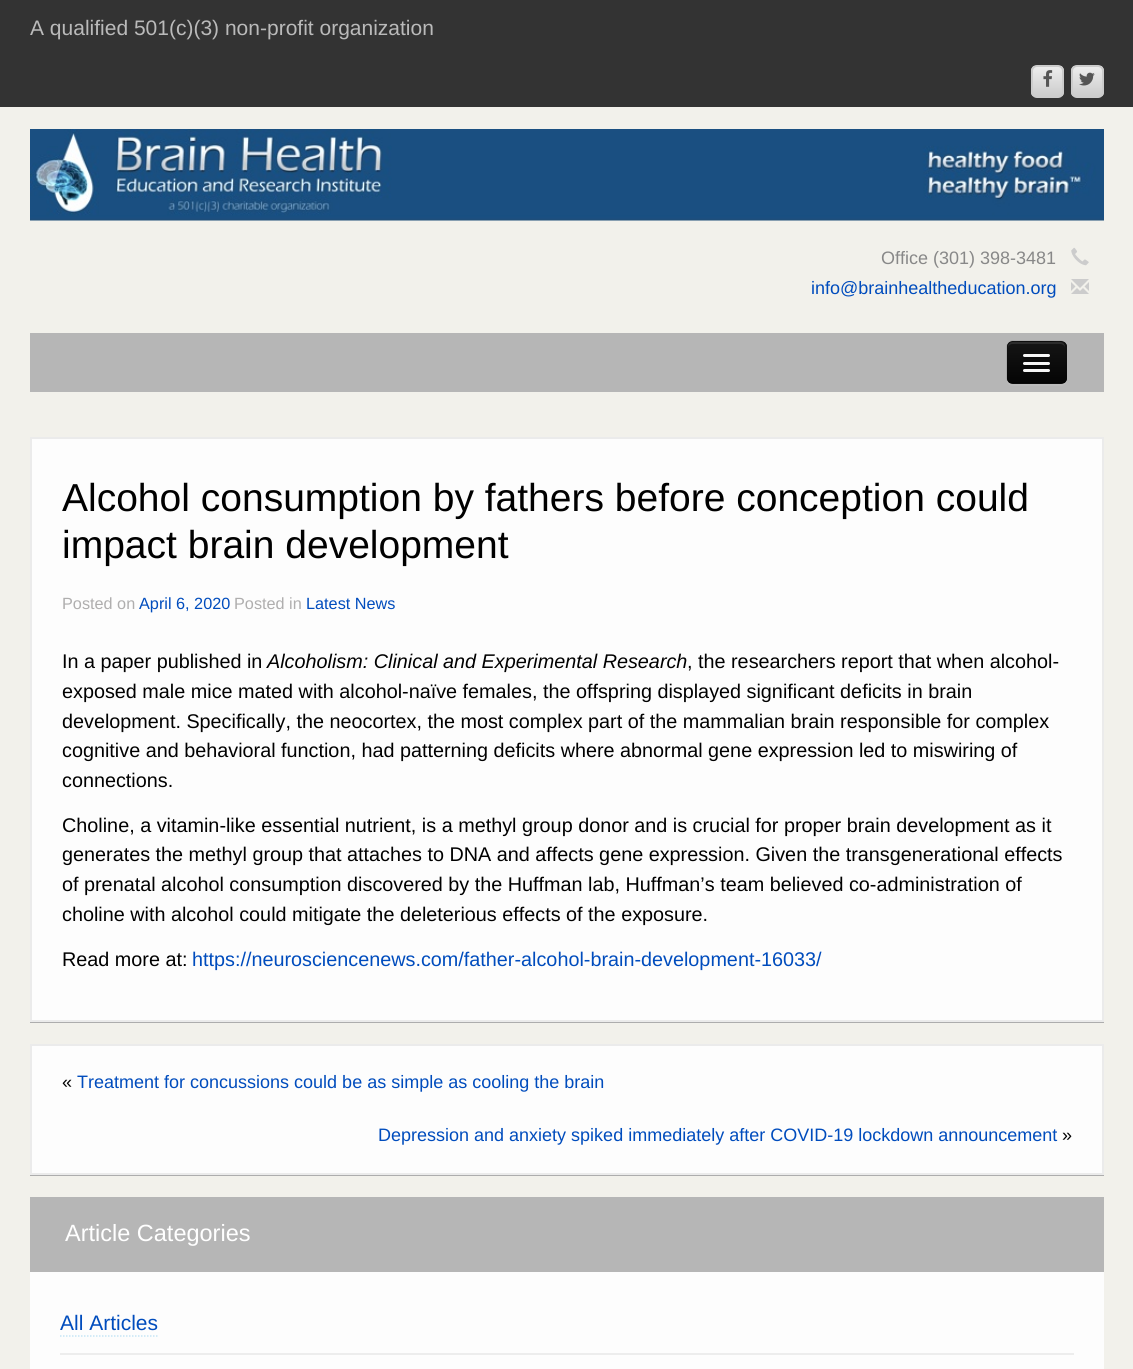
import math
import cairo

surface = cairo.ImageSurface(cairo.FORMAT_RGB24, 1133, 1369)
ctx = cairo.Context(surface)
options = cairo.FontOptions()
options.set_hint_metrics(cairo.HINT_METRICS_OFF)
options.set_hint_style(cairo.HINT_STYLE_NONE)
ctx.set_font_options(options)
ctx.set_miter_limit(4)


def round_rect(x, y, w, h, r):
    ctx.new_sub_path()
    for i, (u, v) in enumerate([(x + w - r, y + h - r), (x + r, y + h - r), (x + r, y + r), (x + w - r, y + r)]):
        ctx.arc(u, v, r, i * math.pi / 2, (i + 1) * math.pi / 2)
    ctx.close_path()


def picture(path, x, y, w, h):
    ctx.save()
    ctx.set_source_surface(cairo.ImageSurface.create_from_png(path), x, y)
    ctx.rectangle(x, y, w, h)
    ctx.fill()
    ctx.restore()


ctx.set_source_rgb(0.949, 0.945, 0.918)
ctx.paint()
ctx.set_source_rgb(0.2, 0.2, 0.2)
ctx.rectangle(0, 0, 1133, 107)
ctx.fill()
ctx.select_font_face("Liberation Sans")
ctx.set_font_size(21)
ctx.set_source_rgb(0.729, 0.729, 0.729)
ctx.move_to(30, 35)
ctx.show_text("A qualified 501(c)(3) non-profit organization")
ctx.save()
round_rect(1031, 65, 33, 33, 6)
ctx.clip()
gradient = cairo.LinearGradient(1047, 66, 1047, 96)
gradient.add_color_stop_rgba(0, 0.933, 0.933, 0.933, 1)
gradient.add_color_stop_rgba(1, 0.8, 0.8, 0.8, 1)
ctx.set_source(gradient)
ctx.rectangle(1031, 66, 33, 30)
ctx.fill()
ctx.restore()
round_rect(1032, 66, 31, 31, 5)
ctx.set_source_rgb(0.8, 0.8, 0.8)
ctx.stroke()
picture("img1.png", 1043, 70, 10, 17)
ctx.save()
round_rect(1071, 65, 33, 33, 6)
ctx.clip()
gradient = cairo.LinearGradient(1088, 66, 1088, 96)
gradient.add_color_stop_rgba(0, 0.933, 0.933, 0.933, 1)
gradient.add_color_stop_rgba(1, 0.8, 0.8, 0.8, 1)
ctx.set_source(gradient)
ctx.rectangle(1071, 66, 33, 30)
ctx.fill()
ctx.restore()
round_rect(1072, 66, 31, 31, 5)
ctx.stroke()
picture("img2.png", 1079, 72, 16, 14)
picture("img3.png", 30, 129, 1074, 92)
ctx.set_font_size(18)
ctx.set_source_rgb(0.533, 0.533, 0.533)
ctx.move_to(881, 264)
ctx.show_text("Office (301) 398-3481")
picture("img4.png", 1071, 247, 18, 19)
ctx.set_source_rgb(0, 0.298, 0.741)
ctx.move_to(811, 294)
ctx.show_text("info@brainhealtheducation.org")
picture("img5.png", 1071, 279, 18, 15)
ctx.set_source_rgb(0.714, 0.714, 0.714)
ctx.rectangle(30, 333, 1074, 59)
ctx.fill()
ctx.set_source_rgb(0.733, 0.733, 0.733)
ctx.new_path()
ctx.move_to(1007, 380)
ctx.curve_to(1007, 384, 1010, 386, 1013, 386)
ctx.line_to(1061, 386)
ctx.curve_to(1064, 386, 1067, 383, 1067, 380)
ctx.line_to(1067, 348)
ctx.line_to(1066, 345)
ctx.line_to(1066, 379)
ctx.line_to(1065, 381)
ctx.curve_to(1065, 383, 1063, 384, 1062, 384)
ctx.line_to(1020, 384)
ctx.curve_to(1016, 384, 1009, 386, 1007, 380)
ctx.close_path()
ctx.fill()
ctx.set_source_rgb(0.055, 0.055, 0.055)
round_rect(1007, 341, 60, 43, 6)
ctx.fill()
ctx.save()
round_rect(1007, 341, 60, 43, 6)
ctx.clip()
gradient = cairo.LinearGradient(1037, 342, 1037, 383)
gradient.add_color_stop_rgba(0, 0.082, 0.082, 0.082, 1)
gradient.add_color_stop_rgba(1, 0.016, 0.016, 0.016, 1)
ctx.set_source(gradient)
ctx.rectangle(1007, 342, 60, 41)
ctx.fill()
ctx.restore()
ctx.set_source_rgb(0.173, 0.173, 0.173)
ctx.new_path()
ctx.move_to(1012, 344)
ctx.line_to(1060, 344)
ctx.curve_to(1063, 344, 1065, 346, 1065, 348)
ctx.curve_to(1065, 340, 1058, 342, 1052, 342)
ctx.line_to(1021, 342)
ctx.curve_to(1015, 342, 1008, 340, 1008, 348)
ctx.curve_to(1008, 346, 1010, 344, 1012, 344)
ctx.close_path()
ctx.fill()
ctx.new_path()
ctx.move_to(1064, 381.5)
ctx.curve_to(1063, 382.5, 1062, 383, 1060.5, 383)
ctx.line_to(1012.5, 383)
ctx.curve_to(1011, 383, 1010, 382.5, 1009, 381.5)
ctx.set_source_rgba(0, 0, 0, 0.25)
ctx.set_line_width(1.5)
ctx.stroke()
ctx.new_path()
ctx.move_to(1009, 381.5)
ctx.curve_to(1008, 380.5, 1007, 379.5, 1007, 378)
ctx.line_to(1007, 346.5)
ctx.curve_to(1007, 345, 1008, 344, 1009, 343)
ctx.curve_to(1010, 342, 1011, 341, 1012.5, 341)
ctx.line_to(1060.5, 341)
ctx.curve_to(1062, 341, 1063, 342, 1064, 343)
ctx.curve_to(1065, 344, 1066, 345, 1066, 346.5)
ctx.line_to(1066, 378)
ctx.curve_to(1066, 379.5, 1065, 380.5, 1064, 381.5)
ctx.set_source_rgba(0, 0, 0, 0.1)
ctx.stroke()
ctx.set_source_rgb(0.043, 0.043, 0.043)
ctx.new_path()
ctx.move_to(1023.5, 356.5)
ctx.line_to(1023, 358)
ctx.curve_to(1023.5, 360, 1028, 359, 1028.5, 359)
ctx.line_to(1044.5, 359)
ctx.curve_to(1045, 359, 1049.5, 360, 1050, 358)
ctx.line_to(1049.5, 356.5)
ctx.line_to(1048.5, 357)
ctx.line_to(1024.5, 357)
ctx.close_path()
ctx.fill()
ctx.set_source_rgb(0.961, 0.961, 0.961)
round_rect(1023, 354, 27, 3, 1.5)
ctx.fill()
ctx.set_source_rgb(0.031, 0.031, 0.031)
ctx.new_path()
ctx.move_to(1023, 364)
ctx.curve_to(1021.5, 367, 1028.5, 366, 1028.5, 366)
ctx.line_to(1044.5, 366)
ctx.curve_to(1044.5, 366, 1051.5, 367, 1050, 364)
ctx.curve_to(1049.5, 364, 1049, 364.5, 1048.5, 364.5)
ctx.line_to(1024.5, 364.5)
ctx.curve_to(1024, 364.5, 1023.5, 364, 1023, 364)
ctx.close_path()
ctx.fill()
ctx.set_source_rgb(0.961, 0.961, 0.961)
round_rect(1023, 362, 27, 3, 1.5)
ctx.fill()
round_rect(1023, 369, 27, 3, 1.5)
ctx.fill()
ctx.set_source_rgb(0.678, 0.678, 0.678)
ctx.rectangle(30, 1022, 1074, 1)
ctx.fill()
ctx.set_source_rgb(0.992, 0.992, 0.992)
ctx.rectangle(31, 438, 1072, 583)
ctx.fill_preserve()
ctx.set_source_rgb(0.918, 0.918, 0.918)
ctx.set_line_width(2)
ctx.stroke()
ctx.set_font_size(39)
ctx.set_source_rgb(0, 0, 0)
ctx.move_to(62, 511)
ctx.show_text("Alcohol consumption by fathers before conception could")
ctx.move_to(62, 558)
ctx.show_text("impact brain development")
ctx.set_font_size(16.25)
ctx.set_source_rgb(0.686, 0.682, 0.682)
ctx.move_to(62, 609)
ctx.show_text("Posted on")
ctx.set_source_rgb(0, 0.298, 0.741)
ctx.move_to(139, 609)
ctx.show_text("April 6, 2020")
ctx.set_source_rgb(0.686, 0.682, 0.682)
ctx.move_to(234, 609)
ctx.show_text("Posted in")
ctx.set_source_rgb(0, 0.298, 0.741)
ctx.move_to(306, 609)
ctx.show_text("Latest News")
ctx.set_font_size(19.8)
ctx.set_source_rgb(0, 0, 0)
ctx.move_to(62, 668)
ctx.show_text("In a paper published in")
ctx.select_font_face("Liberation Sans", cairo.FONT_SLANT_ITALIC)
ctx.move_to(267, 668)
ctx.show_text("Alcoholism: Clinical and Experimental Research")
ctx.select_font_face("Liberation Sans")
ctx.move_to(687, 668)
ctx.show_text(", the researchers report that when alcohol-")
ctx.move_to(62, 698)
ctx.show_text("exposed male mice mated with alcohol-naïve females, the offspring displayed significant deficits in brain")
ctx.move_to(62, 728)
ctx.show_text("development. Specifically, the neocortex, the most complex part of the mammalian brain responsible for complex")
ctx.move_to(62, 757)
ctx.show_text("cognitive and behavioral function, had patterning deficits where abnormal gene expression led to miswiring of")
ctx.move_to(62, 787)
ctx.show_text("connections.")
ctx.move_to(62, 832)
ctx.show_text("Choline, a vitamin-like essential nutrient, is a methyl group donor and is crucial for proper brain development as it")
ctx.move_to(62, 861)
ctx.show_text("generates the methyl group that attaches to DNA and affects gene expression. Given the transgenerational effects")
ctx.move_to(62, 891)
ctx.show_text("of prenatal alcohol consumption discovered by the Huffman lab, Huffman’s team believed co-administration of")
ctx.move_to(62, 921)
ctx.show_text("choline with alcohol could mitigate the deleterious effects of the exposure.")
ctx.move_to(62, 966)
ctx.show_text("Read more at:")
ctx.set_source_rgb(0, 0.298, 0.741)
ctx.move_to(192, 966)
ctx.show_text("https://neurosciencenews.com/father-alcohol-brain-development-16033/")
ctx.set_source_rgb(0.678, 0.678, 0.678)
ctx.rectangle(30, 1175, 1074, 1)
ctx.fill()
ctx.set_source_rgb(0.992, 0.992, 0.992)
ctx.rectangle(31, 1045, 1072, 129)
ctx.fill_preserve()
ctx.set_source_rgb(0.918, 0.918, 0.918)
ctx.stroke()
ctx.set_font_size(18)
ctx.set_source_rgb(0, 0, 0)
ctx.move_to(62, 1088)
ctx.show_text("«")
ctx.set_source_rgb(0, 0.298, 0.741)
ctx.move_to(77, 1088)
ctx.show_text("Treatment for concussions could be as simple as cooling the brain")
ctx.move_to(378, 1141)
ctx.show_text("Depression and anxiety spiked immediately after COVID-19 lockdown announcement")
ctx.set_source_rgb(0, 0, 0)
ctx.move_to(1062, 1141)
ctx.show_text("»")
ctx.set_source_rgb(0.992, 0.992, 0.992)
ctx.rectangle(30, 1272, 1074, 97)
ctx.fill()
ctx.set_source_rgb(0.714, 0.714, 0.714)
ctx.rectangle(30, 1197, 1074, 75)
ctx.fill()
ctx.set_font_size(23.5)
ctx.set_source_rgb(1, 1, 1)
ctx.move_to(65, 1241)
ctx.show_text("Article Categories")
ctx.set_source_rgb(0.929, 0.929, 0.929)
ctx.rectangle(60, 1353, 1014, 2)
ctx.fill()
ctx.set_font_size(21)
ctx.set_source_rgb(0, 0.298, 0.741)
ctx.move_to(60, 1330)
ctx.show_text("All Articles")
ctx.new_path()
ctx.move_to(60, 1336)
ctx.line_to(157.5, 1336)
ctx.set_source_rgb(0.773, 0.898, 0.957)
ctx.set_line_width(1.5)
ctx.set_dash([1.5, 1.5])
ctx.stroke()
surface.write_to_png("page.png")
